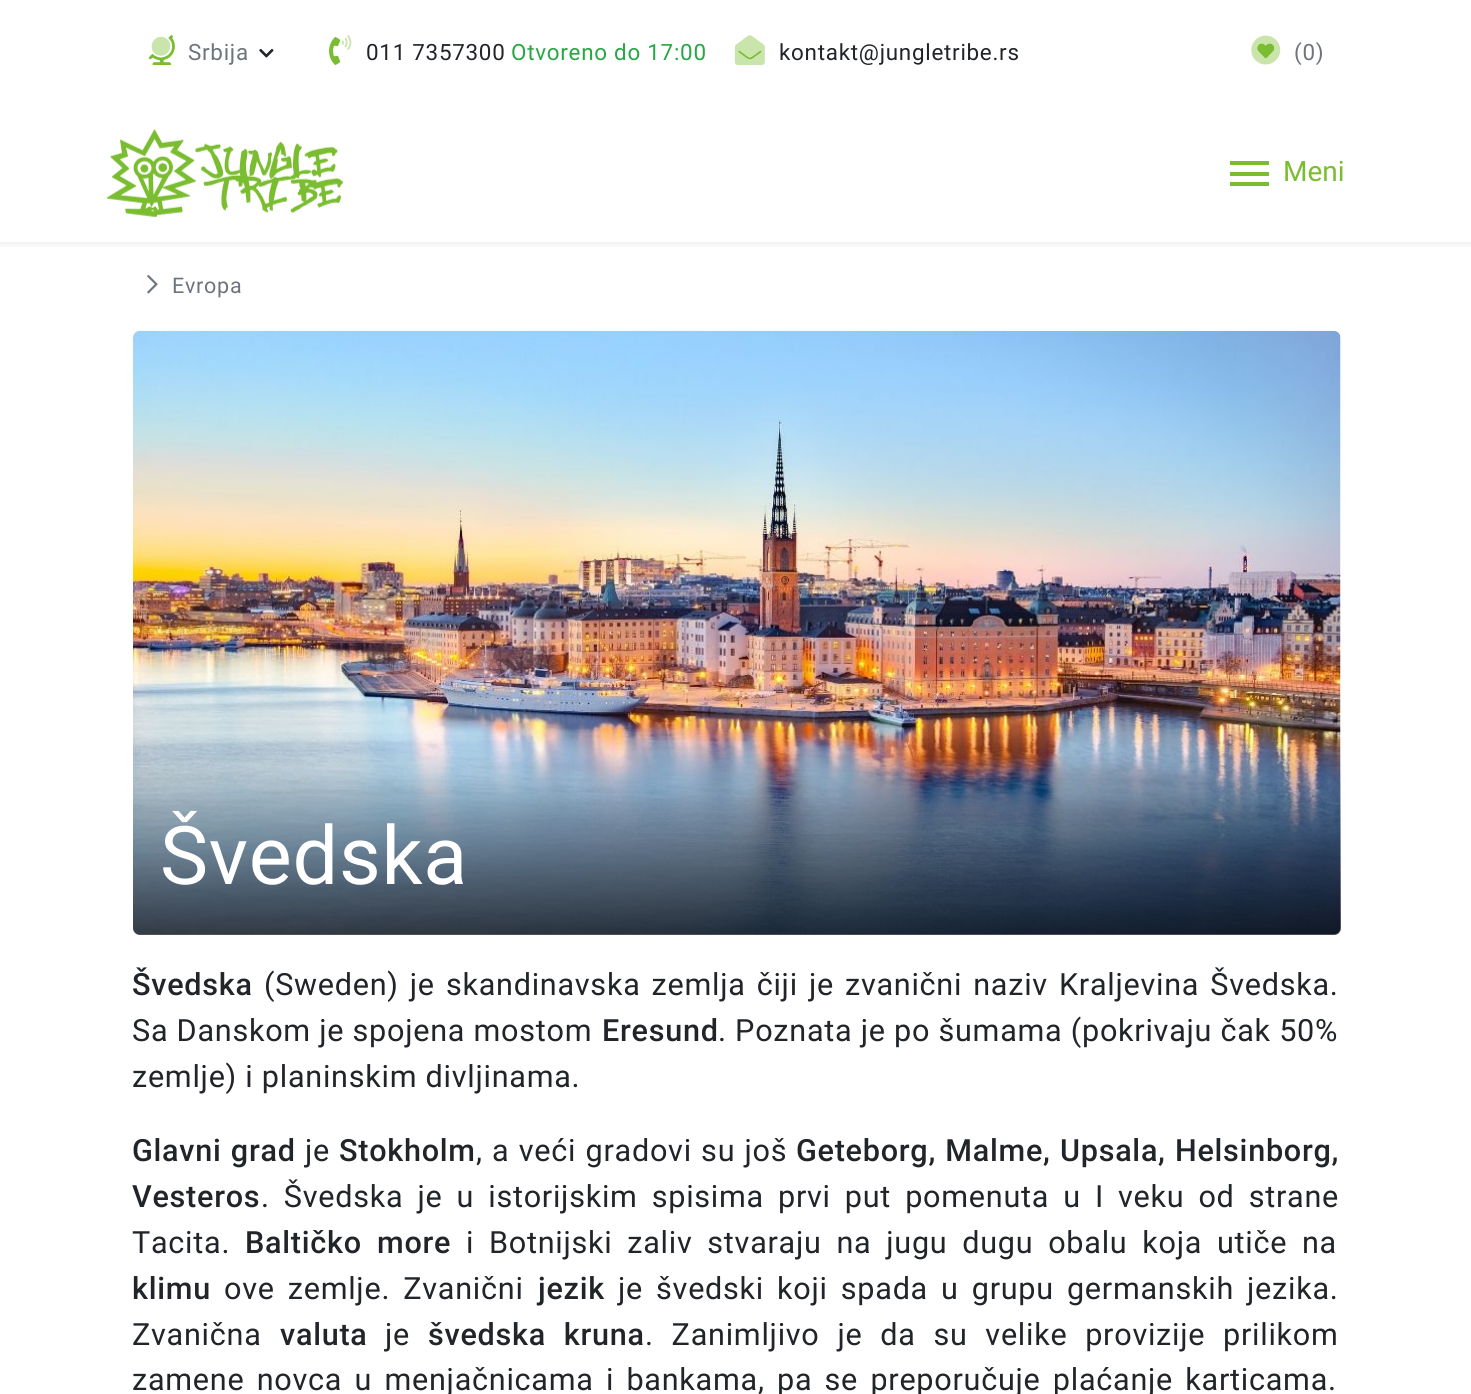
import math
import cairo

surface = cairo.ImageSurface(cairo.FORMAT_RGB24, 1471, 1394)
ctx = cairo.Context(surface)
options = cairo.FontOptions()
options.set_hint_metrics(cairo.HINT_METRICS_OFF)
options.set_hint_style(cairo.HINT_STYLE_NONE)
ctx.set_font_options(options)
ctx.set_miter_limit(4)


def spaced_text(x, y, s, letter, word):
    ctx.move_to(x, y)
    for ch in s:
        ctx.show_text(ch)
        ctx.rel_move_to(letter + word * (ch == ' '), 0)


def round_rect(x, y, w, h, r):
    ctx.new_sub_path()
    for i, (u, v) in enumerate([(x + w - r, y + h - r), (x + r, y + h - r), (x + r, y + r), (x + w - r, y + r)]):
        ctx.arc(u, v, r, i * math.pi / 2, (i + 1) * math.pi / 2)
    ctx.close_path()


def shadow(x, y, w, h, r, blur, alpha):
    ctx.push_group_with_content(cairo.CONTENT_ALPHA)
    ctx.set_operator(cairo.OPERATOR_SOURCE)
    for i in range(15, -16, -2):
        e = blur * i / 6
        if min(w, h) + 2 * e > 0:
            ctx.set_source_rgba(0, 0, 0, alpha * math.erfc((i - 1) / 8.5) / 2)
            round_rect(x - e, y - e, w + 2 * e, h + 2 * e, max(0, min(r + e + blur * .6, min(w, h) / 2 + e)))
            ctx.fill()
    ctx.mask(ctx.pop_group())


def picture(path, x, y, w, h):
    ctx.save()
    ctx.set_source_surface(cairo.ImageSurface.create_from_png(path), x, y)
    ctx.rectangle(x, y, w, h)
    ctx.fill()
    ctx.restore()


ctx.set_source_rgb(1, 1, 1)
ctx.paint()
ctx.save()
ctx.rectangle(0, 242, 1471, 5)
ctx.clip()
ctx.set_source_rgb(0, 0, 0)
shadow(0, 4, 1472, 241, 0, 3.5, 0.07)
ctx.restore()
picture("img1.png", 148, 35, 27, 30)
ctx.set_source_rgb(0.792, 0.898, 0.675)
ctx.new_path()
ctx.move_to(157.5, 55)
ctx.curve_to(146, 50.5, 153, 33, 164.5, 37.5)
ctx.curve_to(176, 42.5, 168.5, 59.5, 157.5, 55)
ctx.close_path()
ctx.fill()
ctx.select_font_face("Roboto")
ctx.set_font_size(22.4)
ctx.set_source_rgb(0.424, 0.459, 0.49)
spaced_text(188, 60, "Srbija", 0.73, 0)
picture("img2.png", 259, 48, 15, 10)
picture("img3.png", 329, 37, 12, 28)
picture("img4.png", 341, 35, 11, 15)
ctx.set_source_rgb(0.129, 0.145, 0.161)
spaced_text(366, 60, "011 7357300", 0.73, 0)
ctx.set_source_rgb(0.157, 0.655, 0.271)
spaced_text(511, 60, "Otvoreno do 17:00", 0.73, 0)
picture("img6.png", 738, 50, 24, 10)
picture("img5.png", 734, 35, 31, 30)
ctx.set_source_rgb(0.129, 0.145, 0.161)
spaced_text(779, 60, "kontakt@jungletribe.rs", 0.73, 0)
picture("img8.png", 1257, 43, 18, 16)
picture("img7.png", 1251, 35, 30, 30)
ctx.set_source_rgb(0.424, 0.459, 0.49)
spaced_text(1294, 60, "(0)", 0.73, 0)
ctx.set_source_rgb(1, 1, 1)
ctx.rectangle(0, 241, 1471, 1)
ctx.fill()
picture("img9.png", 107, 129, 236, 88)
ctx.set_source_rgb(0.478, 0.741, 0.188)
ctx.rectangle(1230, 161, 39, 4)
ctx.fill()
ctx.rectangle(1230, 172, 39, 4)
ctx.fill()
ctx.rectangle(1230, 182, 39, 4)
ctx.fill()
ctx.set_font_size(28)
ctx.move_to(1283, 181)
ctx.show_text("Meni")
picture("img10.png", 147, 275, 11, 19)
ctx.set_font_size(21.5)
ctx.set_source_rgb(0.424, 0.459, 0.49)
spaced_text(172, 293, "Evropa", 0.73, 0)
picture("img11.png", 133, 330, 1208, 605)
gradient = cairo.LinearGradient(737, 752, 737, 935)
gradient.add_color_stop_rgba(0, 0, 0, 0, 0)
gradient.add_color_stop_rgba(1, 0, 0, 0, 0.65)
ctx.set_source(gradient)
ctx.new_path()
ctx.move_to(133, 753)
ctx.line_to(1341, 753)
ctx.line_to(1341, 928)
ctx.curve_to(1341, 932, 1338, 935, 1334, 935)
ctx.line_to(140, 935)
ctx.curve_to(136, 935, 133, 932, 133, 928)
ctx.close_path()
ctx.fill()
ctx.set_font_size(81)
ctx.set_source_rgb(1, 1, 1)
spaced_text(160, 884, "Švedska", 0.73, 0)
ctx.select_font_face("Roboto Medium")
ctx.set_font_size(30.6)
ctx.set_source_rgb(0.129, 0.145, 0.161)
spaced_text(132, 995, "Švedska", 0.73, 0)
ctx.select_font_face("Roboto")
spaced_text(264, 995, "(Sweden) je skandinavska zemlja čiji je zvanični naziv Kraljevina Švedska.", 0.73, 2.75)
spaced_text(132, 1041, "Sa Danskom je spojena mostom", 0.73, 0)
ctx.select_font_face("Roboto Medium")
spaced_text(602, 1041, "Eresund", 0.73, 0)
ctx.select_font_face("Roboto")
spaced_text(718, 1041, ". Poznata je po šumama (pokrivaju čak 50%", 0.73, 0)
spaced_text(132, 1087, "zemlje) i planinskim divljinama.", 0.73, 0)
ctx.select_font_face("Roboto Medium")
spaced_text(132, 1161, "Glavni grad", 0.73, 1)
ctx.select_font_face("Roboto")
spaced_text(305, 1161, "je", 0.73, 0)
ctx.select_font_face("Roboto Medium")
spaced_text(339, 1161, "Stokholm", 0.73, 0)
ctx.select_font_face("Roboto")
spaced_text(476, 1161, ", a veći gradovi su još", 0.73, 1)
ctx.select_font_face("Roboto Medium")
spaced_text(796, 1161, "Geteborg, Malme, Upsala, Helsinborg,", 0.73, 1)
spaced_text(132, 1207, "Vesteros", 0.73, 0)
ctx.select_font_face("Roboto")
spaced_text(261, 1207, ". Švedska je u istorijskim spisima prvi put pomenuta u I veku od strane", 0.73, 5.75)
spaced_text(132, 1253, "Tacita.", 0.73, 0)
ctx.select_font_face("Roboto Medium")
spaced_text(245, 1253, "Baltičko more", 0.73, 7)
ctx.select_font_face("Roboto")
spaced_text(466, 1253, "i Botnijski zaliv stvaraju na jugu dugu obalu koja utiče na", 0.73, 6.5)
ctx.select_font_face("Roboto Medium")
spaced_text(132, 1299, "klimu", 0.73, 0)
ctx.select_font_face("Roboto")
spaced_text(224, 1299, "ove zemlje. Zvanični", 0.73, 4.75)
ctx.select_font_face("Roboto Medium")
spaced_text(538, 1299, "jezik", 0.73, 0)
ctx.select_font_face("Roboto")
spaced_text(618, 1299, "je švedski koji spada u grupu germanskih jezika.", 0.73, 4.75)
spaced_text(132, 1345, "Zvanična", 0.73, 0)
ctx.select_font_face("Roboto Medium")
spaced_text(280, 1345, "valuta", 0.73, 0)
ctx.select_font_face("Roboto")
spaced_text(385, 1345, "je", 0.73, 0)
ctx.select_font_face("Roboto Medium")
spaced_text(428, 1345, "švedska kruna", 0.73, 9.5)
ctx.select_font_face("Roboto")
spaced_text(645, 1345, ". Zanimljivo je da su velike provizije prilikom", 0.73, 9.5)
spaced_text(132, 1390, "zamene novca u menjačnicama i bankama, pa se preporučuje plaćanje karticama.", 0.73, 4)
surface.write_to_png("page.png")
